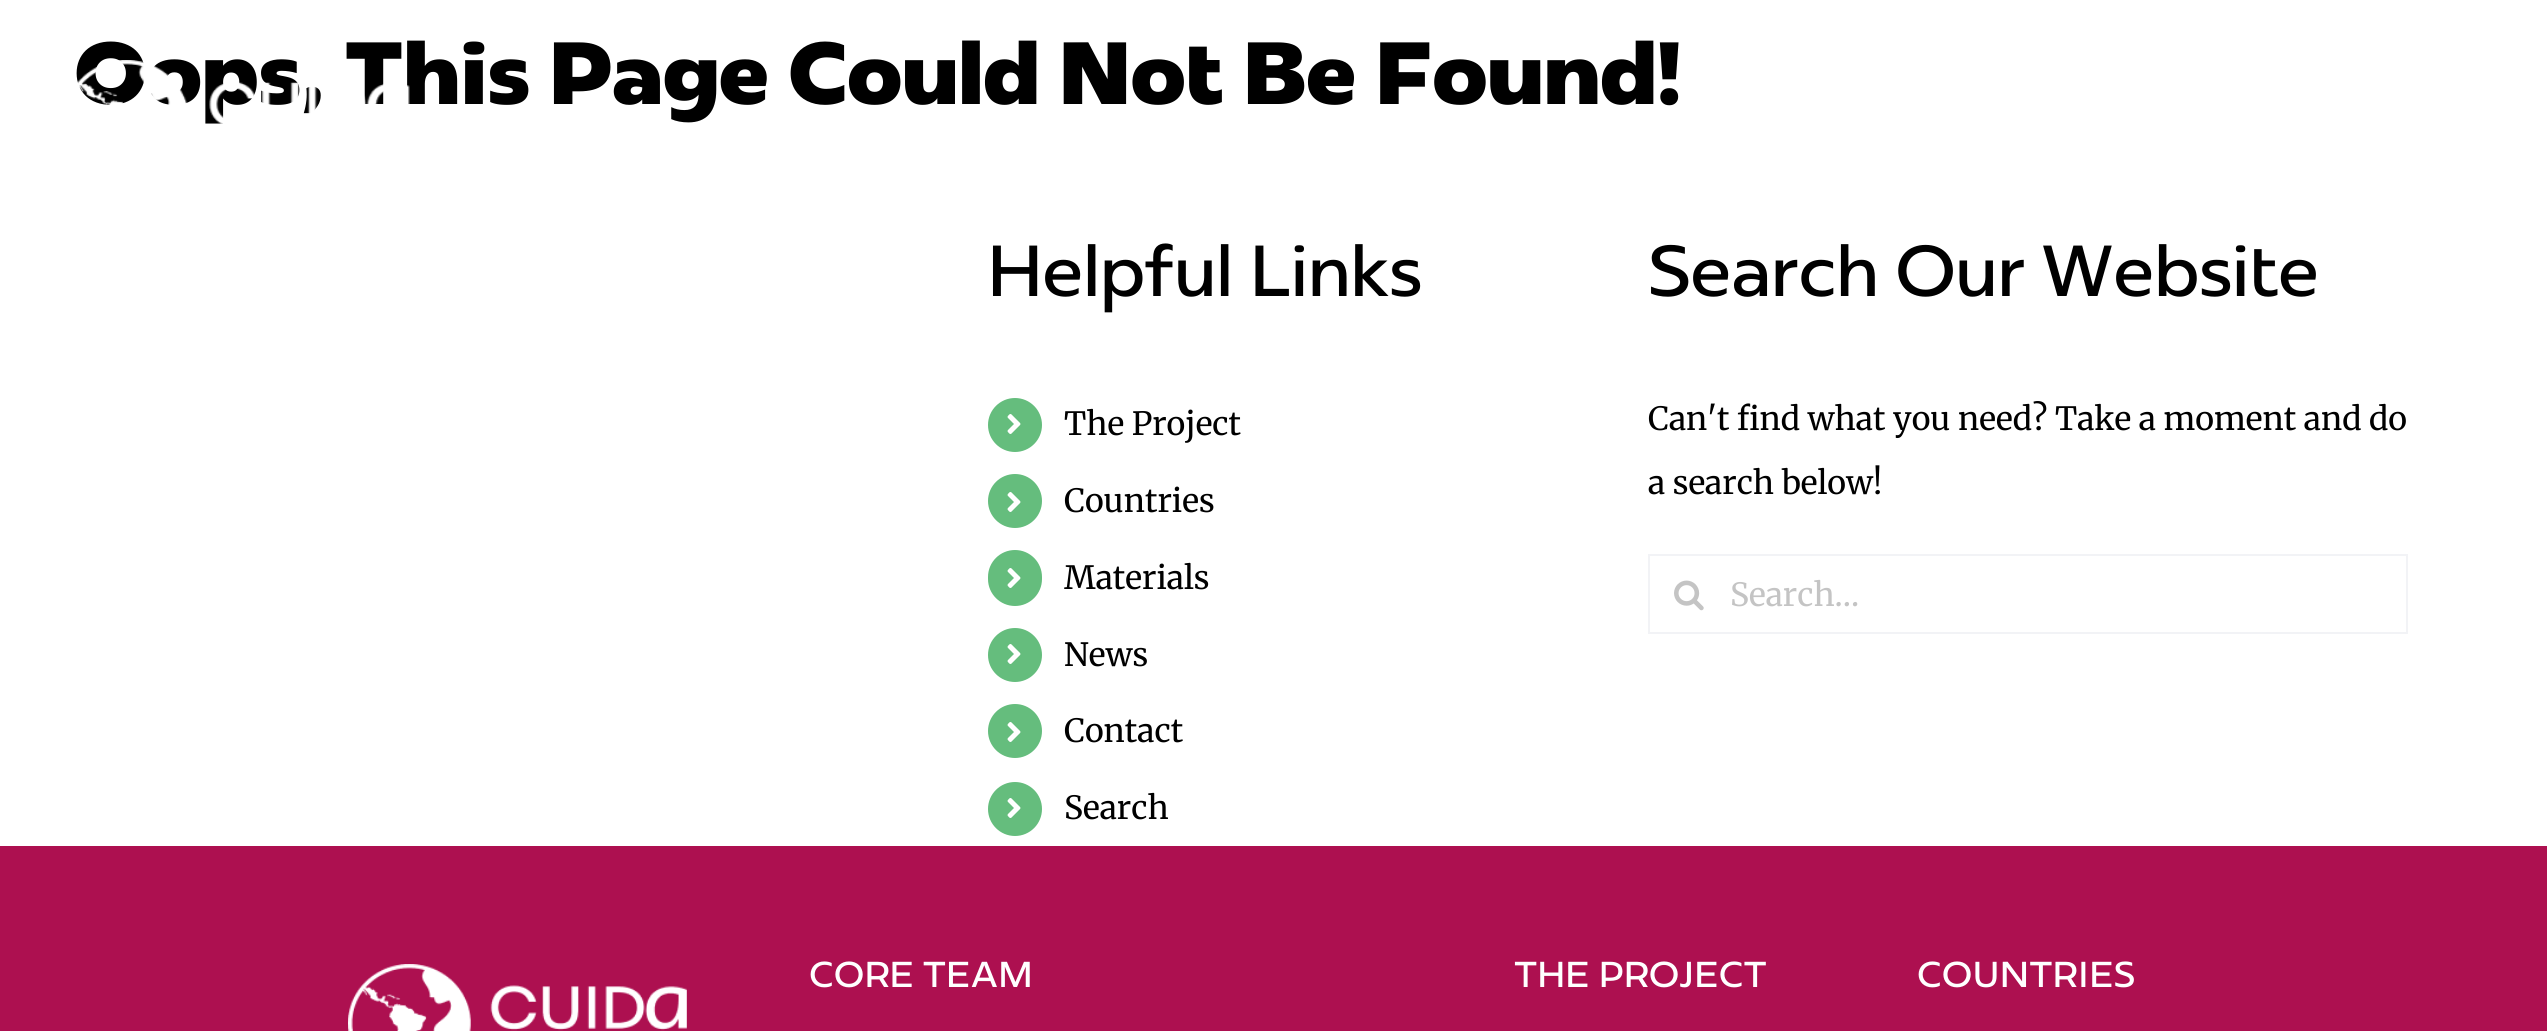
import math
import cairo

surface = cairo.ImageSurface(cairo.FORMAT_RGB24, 2547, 1031)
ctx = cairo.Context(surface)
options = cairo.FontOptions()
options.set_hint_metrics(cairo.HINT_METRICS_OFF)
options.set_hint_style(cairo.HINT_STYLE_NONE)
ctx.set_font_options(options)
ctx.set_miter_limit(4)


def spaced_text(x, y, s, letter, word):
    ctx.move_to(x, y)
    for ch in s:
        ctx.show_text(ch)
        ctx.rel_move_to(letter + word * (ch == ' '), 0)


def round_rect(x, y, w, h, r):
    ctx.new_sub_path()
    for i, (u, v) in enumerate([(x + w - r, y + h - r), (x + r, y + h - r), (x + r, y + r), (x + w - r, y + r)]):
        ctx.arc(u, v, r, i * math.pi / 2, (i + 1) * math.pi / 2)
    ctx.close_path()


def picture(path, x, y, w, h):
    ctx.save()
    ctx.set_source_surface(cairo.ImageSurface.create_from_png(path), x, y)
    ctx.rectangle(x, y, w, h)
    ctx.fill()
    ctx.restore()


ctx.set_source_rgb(1, 1, 1)
ctx.paint()
ctx.select_font_face("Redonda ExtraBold")
ctx.set_font_size(88)
ctx.set_source_rgb(0, 0, 0)
spaced_text(74, 104, "Oops, This Page Could Not Be Found!", -1.3, 0)
ctx.select_font_face("Redonda")
ctx.set_font_size(72)
spaced_text(987, 296, "Helpful Links", -1.1, 0)
ctx.set_source_rgb(0.396, 0.741, 0.49)
ctx.new_path()
ctx.arc(1015, 425, 27, 0, 2 * math.pi)
ctx.fill()
picture("img1.png", 1007, 414, 14, 20)
ctx.select_font_face("Merriweather")
ctx.set_font_size(32)
ctx.set_source_rgb(0, 0, 0)
ctx.move_to(1064, 435)
ctx.show_text("The Project")
ctx.set_source_rgb(0.396, 0.741, 0.49)
ctx.new_path()
ctx.arc(1015, 501, 27, 0, 2 * math.pi)
ctx.fill()
picture("img1.png", 1007, 492, 14, 20)
ctx.set_source_rgb(0, 0, 0)
ctx.move_to(1064, 512)
ctx.show_text("Countries")
ctx.set_source_rgb(0.396, 0.741, 0.49)
round_rect(988, 550, 54, 56, 27)
ctx.fill()
picture("img1.png", 1007, 568, 14, 20)
ctx.set_source_rgb(0, 0, 0)
ctx.move_to(1064, 589)
ctx.show_text("Materials")
ctx.set_source_rgb(0.396, 0.741, 0.49)
ctx.new_path()
ctx.arc(1015, 655, 27, 0, 2 * math.pi)
ctx.fill()
picture("img1.png", 1007, 644, 14, 20)
ctx.set_source_rgb(0, 0, 0)
ctx.move_to(1064, 666)
ctx.show_text("News")
ctx.set_source_rgb(0.396, 0.741, 0.49)
ctx.new_path()
ctx.arc(1015, 731, 27, 0, 2 * math.pi)
ctx.fill()
picture("img1.png", 1007, 722, 14, 20)
ctx.set_source_rgb(0, 0, 0)
ctx.move_to(1064, 742)
ctx.show_text("Contact")
ctx.set_source_rgb(0.396, 0.741, 0.49)
ctx.new_path()
ctx.arc(1015, 809, 27, 0, 2 * math.pi)
ctx.fill()
picture("img1.png", 1007, 798, 14, 20)
ctx.set_source_rgb(0, 0, 0)
ctx.move_to(1064, 819)
ctx.show_text("Search")
ctx.select_font_face("Redonda")
ctx.set_font_size(72)
spaced_text(1648, 296, "Search Our Website", -1.1, 0)
ctx.select_font_face("Merriweather")
ctx.set_font_size(32)
ctx.move_to(1648, 430)
ctx.show_text("Can't find what you need? Take a moment and do")
ctx.move_to(1648, 494)
ctx.show_text("a search below!")
ctx.rectangle(1649, 555, 758, 78)
ctx.set_source_rgb(0.949, 0.953, 0.961)
ctx.stroke()
picture("img2.png", 1674, 580, 30, 31)
ctx.set_source_rgb(0.769, 0.769, 0.769)
ctx.move_to(1730, 606)
ctx.show_text("Search...")
picture("img3.png", 77, 60, 333, 64)
ctx.set_source_rgb(0.678, 0.063, 0.314)
ctx.rectangle(0, 846, 2547, 185)
ctx.fill()
picture("img4.png", 348, 964, 339, 67)
ctx.select_font_face("Redonda")
ctx.set_font_size(36)
ctx.set_source_rgb(1, 1, 1)
ctx.move_to(809, 987)
ctx.show_text("CORE TEAM")
ctx.move_to(1514, 987)
ctx.show_text("THE PROJECT")
ctx.move_to(1917, 987)
ctx.show_text("COUNTRIES")
surface.write_to_png("page.png")
